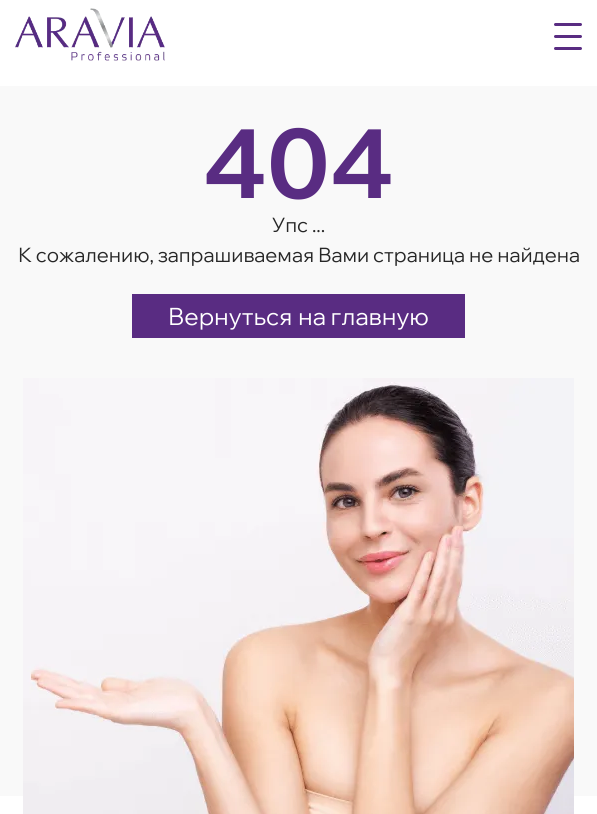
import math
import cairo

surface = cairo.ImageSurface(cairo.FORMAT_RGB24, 597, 814)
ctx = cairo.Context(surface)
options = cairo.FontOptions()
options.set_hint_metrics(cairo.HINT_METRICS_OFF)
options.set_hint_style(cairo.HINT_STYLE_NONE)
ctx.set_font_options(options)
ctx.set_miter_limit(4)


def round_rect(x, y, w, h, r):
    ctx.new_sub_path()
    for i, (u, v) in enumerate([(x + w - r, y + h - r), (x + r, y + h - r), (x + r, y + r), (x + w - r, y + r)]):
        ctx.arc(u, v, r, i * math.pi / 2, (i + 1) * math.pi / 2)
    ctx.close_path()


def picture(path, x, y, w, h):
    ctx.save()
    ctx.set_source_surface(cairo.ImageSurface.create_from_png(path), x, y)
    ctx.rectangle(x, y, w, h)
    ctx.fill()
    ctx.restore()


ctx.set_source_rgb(1, 1, 1)
ctx.paint()
picture("img1.png", 15, 8, 150, 53)
ctx.set_source_rgb(0.349, 0.173, 0.51)
round_rect(554, 23, 28, 3, 1.5)
ctx.fill()
round_rect(554, 35, 28, 3, 1.5)
ctx.fill()
round_rect(554, 47, 28, 3, 1.5)
ctx.fill()
ctx.set_source_rgb(0.973, 0.973, 0.973)
ctx.rectangle(0, 86, 597, 710)
ctx.fill()
ctx.select_font_face("Wix Madefor Display", cairo.FONT_SLANT_NORMAL, cairo.FONT_WEIGHT_BOLD)
ctx.set_font_size(96)
ctx.set_source_rgb(0.349, 0.173, 0.51)
ctx.move_to(203, 198)
ctx.show_text("404")
ctx.select_font_face("Wix Madefor Display")
ctx.set_font_size(20)
ctx.set_source_rgb(0.153, 0.153, 0.153)
ctx.move_to(272, 232)
ctx.show_text("Упс ...")
ctx.move_to(18, 262)
ctx.show_text("К сожалению, запрашиваемая Вами страница не найдена")
ctx.set_source_rgb(0.349, 0.173, 0.51)
ctx.rectangle(132, 294, 333, 44)
ctx.fill()
ctx.set_font_size(24)
ctx.set_source_rgb(1, 1, 1)
ctx.move_to(168, 325)
ctx.show_text("Вернуться")
ctx.move_to(298, 325)
ctx.show_text("на главную")
picture("img2.png", 23, 378, 551, 436)
surface.write_to_png("page.png")
